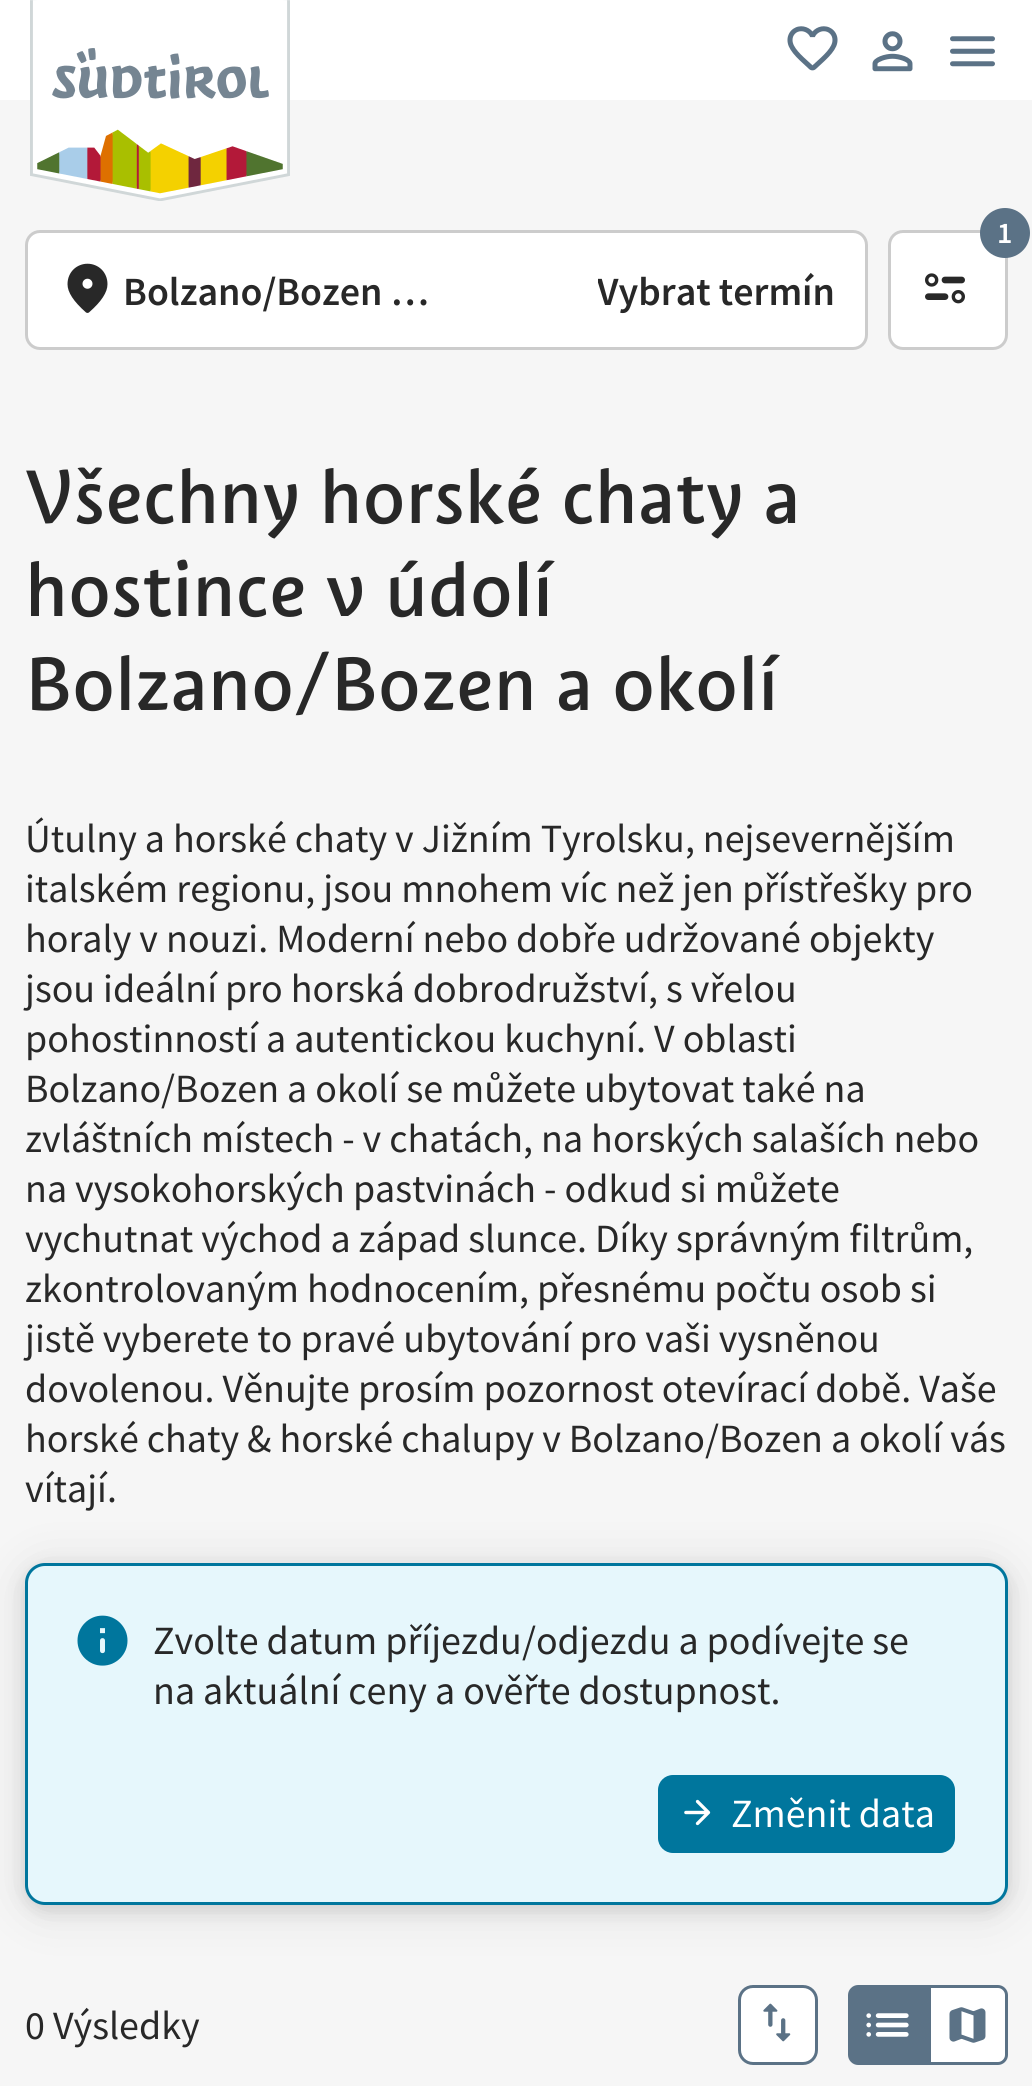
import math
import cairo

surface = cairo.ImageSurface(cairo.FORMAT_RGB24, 1032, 2086)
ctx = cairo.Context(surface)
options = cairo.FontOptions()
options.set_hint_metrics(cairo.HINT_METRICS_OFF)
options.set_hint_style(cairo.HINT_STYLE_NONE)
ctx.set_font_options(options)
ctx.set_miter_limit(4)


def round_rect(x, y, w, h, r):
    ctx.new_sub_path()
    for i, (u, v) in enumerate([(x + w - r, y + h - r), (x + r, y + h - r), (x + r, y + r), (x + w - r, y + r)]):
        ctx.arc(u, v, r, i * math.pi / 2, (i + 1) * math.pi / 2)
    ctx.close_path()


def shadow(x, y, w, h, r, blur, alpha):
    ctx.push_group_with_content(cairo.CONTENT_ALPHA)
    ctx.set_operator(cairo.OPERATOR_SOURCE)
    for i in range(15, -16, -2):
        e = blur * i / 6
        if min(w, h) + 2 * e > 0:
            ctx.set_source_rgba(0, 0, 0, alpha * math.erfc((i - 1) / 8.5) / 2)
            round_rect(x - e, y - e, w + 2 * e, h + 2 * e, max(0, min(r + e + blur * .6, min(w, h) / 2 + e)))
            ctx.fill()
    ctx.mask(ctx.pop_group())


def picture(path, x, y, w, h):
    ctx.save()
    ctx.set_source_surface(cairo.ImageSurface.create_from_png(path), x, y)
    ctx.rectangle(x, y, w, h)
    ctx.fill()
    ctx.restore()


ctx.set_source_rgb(0.961, 0.961, 0.961)
ctx.paint()
ctx.set_source_rgb(1, 1, 1)
ctx.rectangle(0, 0, 1032, 100)
ctx.fill()
picture("img1.png", 30, 0, 260, 201)
picture("img2.png", 787, 26, 51, 45)
picture("img3.png", 872, 31, 41, 41)
picture("img4.png", 950, 36, 45, 31)
round_rect(889.5, 231.5, 117, 117, 13.5)
ctx.fill_preserve()
ctx.set_source_rgb(0.8, 0.8, 0.8)
ctx.set_line_width(3)
ctx.stroke()
ctx.set_source_rgb(0.357, 0.447, 0.525)
ctx.arc(1005, 233, 25, 0, 2 * math.pi)
ctx.fill()
ctx.select_font_face("Source Sans Pro SemiBold")
ctx.set_font_size(30)
ctx.set_source_rgb(1, 1, 1)
ctx.move_to(997, 243)
ctx.show_text("1")
picture("img5.png", 925, 273, 40, 31)
round_rect(26.5, 231.5, 840, 117, 13.5)
ctx.fill_preserve()
ctx.set_source_rgb(0.8, 0.8, 0.8)
ctx.stroke()
picture("img6.png", 67, 263, 41, 50)
ctx.set_font_size(40)
ctx.set_source_rgb(0.157, 0.157, 0.157)
ctx.move_to(123, 305)
ctx.show_text("Bolzano/Bozen …")
ctx.save()
ctx.rectangle(598, 265, 237, 50)
ctx.clip()
ctx.move_to(597, 305)
ctx.show_text("Vybrat termín")
ctx.restore()
ctx.select_font_face("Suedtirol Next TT")
ctx.set_font_size(80)
ctx.move_to(25, 523)
ctx.show_text("Všechny horské chaty a")
ctx.move_to(25, 616)
ctx.show_text("hostince v údolí")
ctx.move_to(25, 710)
ctx.show_text("Bolzano/Bozen a okolí")
ctx.select_font_face("Source Sans Pro")
ctx.set_font_size(40)
ctx.move_to(25, 852)
ctx.show_text("Útulny a horské chaty v Jižním Tyrolsku, nejsevernějším")
ctx.move_to(25, 902)
ctx.show_text("italském regionu, jsou mnohem víc než jen přístřešky pro")
ctx.move_to(25, 952)
ctx.show_text("horaly v nouzi. Moderní nebo dobře udržované objekty")
ctx.move_to(25, 1002)
ctx.show_text("jsou ideální pro horská dobrodružství, s vřelou")
ctx.move_to(25, 1052)
ctx.show_text("pohostinností a autentickou kuchyní. V oblasti")
ctx.move_to(25, 1102)
ctx.show_text("Bolzano/Bozen a okolí se můžete ubytovat také na")
ctx.move_to(25, 1152)
ctx.show_text("zvláštních místech - v chatách, na horských salaších nebo")
ctx.move_to(25, 1202)
ctx.show_text("na vysokohorských pastvinách - odkud si můžete")
ctx.move_to(25, 1252)
ctx.show_text("vychutnat východ a západ slunce. Díky správným filtrům,")
ctx.move_to(25, 1302)
ctx.show_text("zkontrolovaným hodnocením, přesnému počtu osob si")
ctx.move_to(25, 1352)
ctx.show_text("jistě vyberete to pravé ubytování pro vaši vysněnou")
ctx.move_to(25, 1402)
ctx.show_text("dovolenou. Věnujte prosím pozornost otevírací době. Vaše")
ctx.move_to(25, 1452)
ctx.show_text("horské chaty & horské chalupy v Bolzano/Bozen a okolí vás")
ctx.move_to(25, 1502)
ctx.show_text("vítají.")
ctx.set_source_rgb(0, 0, 0)
shadow(25, 1568, 983, 342, 20, 9.5, 0.12)
shadow(25, 1568, 983, 342, 20, 25, 0.1)
ctx.set_source_rgb(0.902, 0.965, 0.988)
round_rect(26.5, 1564.5, 980, 339, 18.5)
ctx.fill_preserve()
ctx.set_source_rgb(0, 0.463, 0.616)
ctx.stroke()
picture("img7.png", 77, 1615, 51, 51)
ctx.set_source_rgb(0.157, 0.157, 0.157)
ctx.move_to(153, 1654)
ctx.show_text("Zvolte datum příjezdu/odjezdu a podívejte se")
ctx.move_to(153, 1704)
ctx.show_text("na aktuální ceny a ověřte dostupnost.")
ctx.set_source_rgb(0, 0.463, 0.616)
round_rect(658, 1775, 297, 78, 15)
ctx.fill()
picture("img8.png", 684, 1799, 27, 27)
ctx.set_source_rgb(1, 1, 1)
ctx.move_to(731, 1827)
ctx.show_text("Změnit data")
ctx.set_source_rgb(0.157, 0.157, 0.157)
ctx.move_to(25, 2039)
ctx.show_text("0 Výsledky")
ctx.set_source_rgb(1, 1, 1)
round_rect(739.5, 1986.5, 77, 77, 13.5)
ctx.fill_preserve()
ctx.set_source_rgb(0.357, 0.447, 0.525)
ctx.stroke()
picture("img9.png", 763, 2003, 28, 39)
ctx.new_path()
ctx.move_to(858, 1986.5)
ctx.line_to(926.5, 1986.5)
ctx.line_to(926.5, 2063.5)
ctx.line_to(858, 2063.5)
ctx.curve_to(853.5, 2063.5, 849.5, 2059.5, 849.5, 2055)
ctx.line_to(849.5, 1995)
ctx.curve_to(849.5, 1990.5, 853.5, 1986.5, 858, 1986.5)
ctx.close_path()
ctx.fill_preserve()
ctx.stroke()
picture("img10.png", 866, 2013, 43, 24)
ctx.set_source_rgb(1, 1, 1)
ctx.new_path()
ctx.move_to(929.5, 1986.5)
ctx.line_to(998, 1986.5)
ctx.curve_to(1002.5, 1986.5, 1006.5, 1990.5, 1006.5, 1995)
ctx.line_to(1006.5, 2055)
ctx.curve_to(1006.5, 2059.5, 1002.5, 2063.5, 998, 2063.5)
ctx.line_to(929.5, 2063.5)
ctx.close_path()
ctx.fill_preserve()
ctx.set_source_rgb(0.357, 0.447, 0.525)
ctx.stroke()
picture("img11.png", 949, 2007, 37, 36)
surface.write_to_png("page.png")
